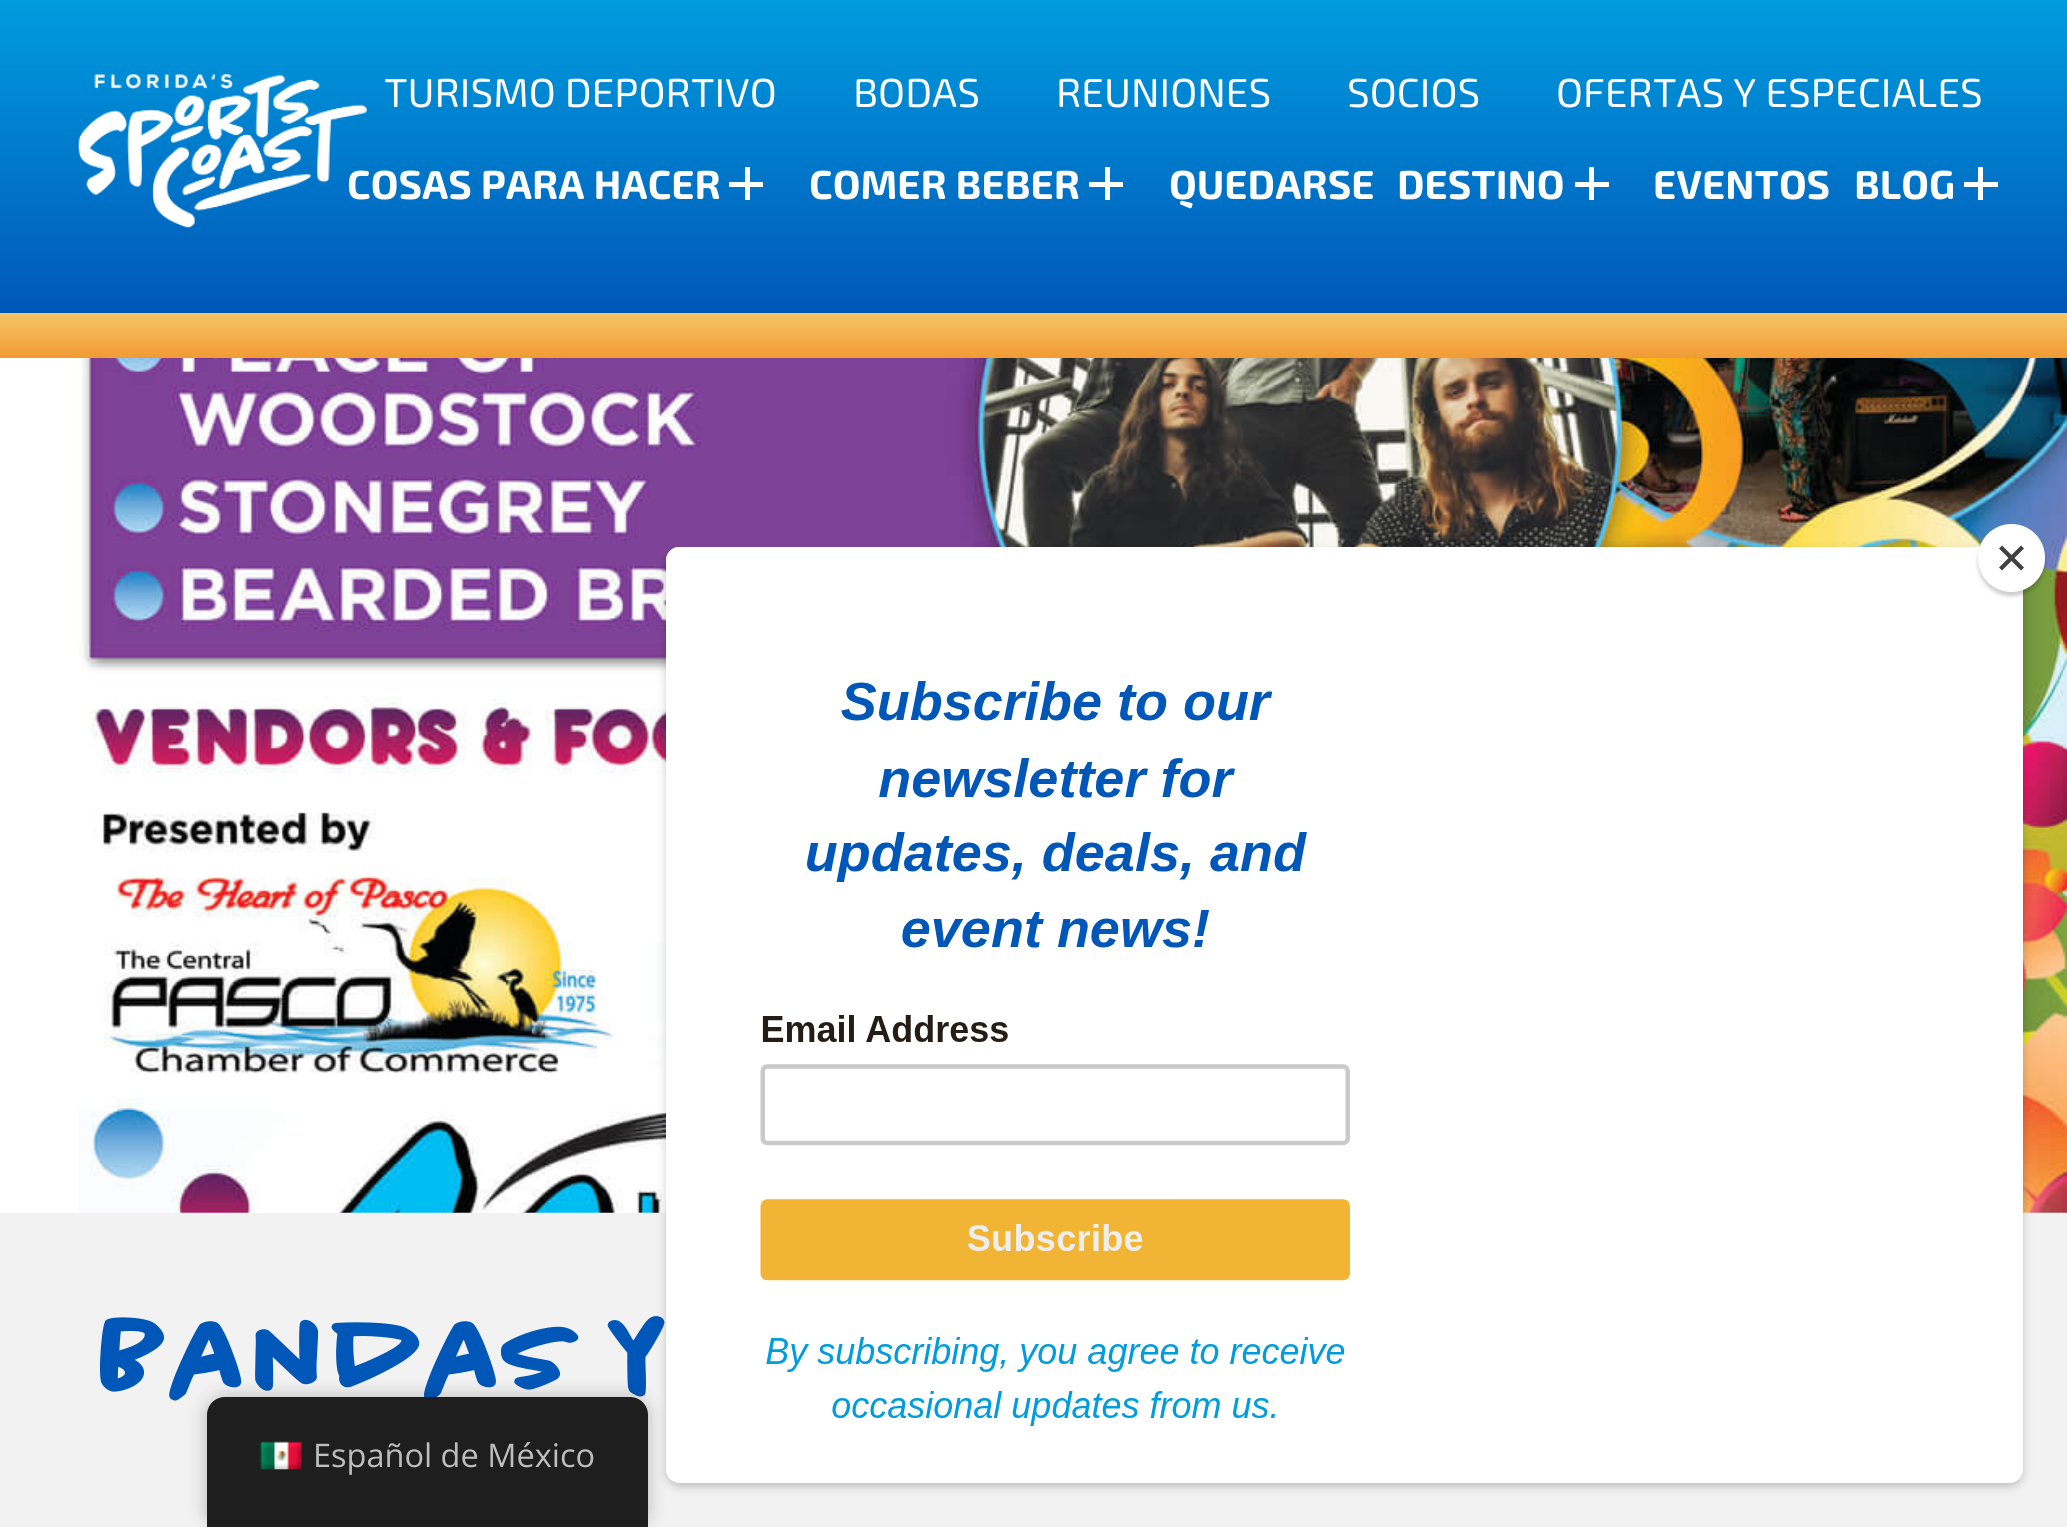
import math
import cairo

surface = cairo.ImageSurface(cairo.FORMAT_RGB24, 2067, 1527)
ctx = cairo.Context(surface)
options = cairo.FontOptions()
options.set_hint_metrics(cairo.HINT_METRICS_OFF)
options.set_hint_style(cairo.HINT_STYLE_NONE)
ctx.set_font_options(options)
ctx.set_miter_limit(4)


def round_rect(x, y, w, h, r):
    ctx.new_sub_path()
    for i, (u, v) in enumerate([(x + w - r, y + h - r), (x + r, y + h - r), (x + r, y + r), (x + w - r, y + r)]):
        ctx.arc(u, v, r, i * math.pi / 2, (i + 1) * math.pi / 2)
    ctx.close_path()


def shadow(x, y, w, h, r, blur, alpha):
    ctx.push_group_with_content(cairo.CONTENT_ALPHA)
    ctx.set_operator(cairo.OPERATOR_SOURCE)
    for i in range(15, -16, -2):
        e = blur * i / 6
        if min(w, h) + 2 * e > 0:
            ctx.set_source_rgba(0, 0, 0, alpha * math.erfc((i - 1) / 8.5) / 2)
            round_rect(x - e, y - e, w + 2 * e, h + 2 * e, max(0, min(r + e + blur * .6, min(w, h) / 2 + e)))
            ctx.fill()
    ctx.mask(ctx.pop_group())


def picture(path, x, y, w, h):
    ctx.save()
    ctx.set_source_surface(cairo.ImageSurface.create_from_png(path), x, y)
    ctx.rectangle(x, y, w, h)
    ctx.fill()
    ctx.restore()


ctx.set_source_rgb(1, 1, 1)
ctx.paint()
gradient = cairo.LinearGradient(1034, 0, 1034, 313)
gradient.add_color_stop_rgba(0, 0, 0.612, 0.871, 1)
gradient.add_color_stop_rgba(1, 0, 0.341, 0.722, 1)
ctx.set_source(gradient)
ctx.rectangle(0, 0, 2067, 313)
ctx.fill()
picture("img1.png", 78, 74, 289, 154)
ctx.select_font_face("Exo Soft")
ctx.set_font_size(40.5)
ctx.set_source_rgb(1, 1, 1)
ctx.move_to(384, 107)
ctx.show_text("TURISMO DEPORTIVO")
ctx.move_to(853, 107)
ctx.show_text("BODAS")
ctx.move_to(1056, 107)
ctx.show_text("REUNIONES")
ctx.move_to(1347, 107)
ctx.show_text("SOCIOS")
ctx.move_to(1556, 107)
ctx.show_text("OFERTAS Y ESPECIALES")
ctx.select_font_face("Exo Soft", cairo.FONT_SLANT_NORMAL, cairo.FONT_WEIGHT_BOLD)
ctx.move_to(347, 199)
ctx.show_text("COSAS PARA HACER")
ctx.rectangle(729, 182, 34, 5)
ctx.fill()
ctx.rectangle(745, 167, 5, 33)
ctx.fill()
ctx.move_to(809, 199)
ctx.show_text("COMER BEBER")
ctx.rectangle(1089, 182, 34, 5)
ctx.fill()
ctx.rectangle(1105, 167, 5, 33)
ctx.fill()
ctx.move_to(1169, 199)
ctx.show_text("QUEDARSE")
ctx.move_to(1397, 199)
ctx.show_text("DESTINO")
ctx.rectangle(1575, 182, 34, 5)
ctx.fill()
ctx.rectangle(1589, 167, 5, 33)
ctx.fill()
ctx.move_to(1653, 199)
ctx.show_text("EVENTOS")
ctx.move_to(1854, 199)
ctx.show_text("BLOG")
ctx.rectangle(1964, 182, 34, 5)
ctx.fill()
ctx.rectangle(1978, 167, 5, 33)
ctx.fill()
gradient = cairo.LinearGradient(1034, 313, 1034, 358)
gradient.add_color_stop_rgba(0, 0.961, 0.78, 0.4, 1)
gradient.add_color_stop_rgba(1, 0.945, 0.604, 0.204, 1)
ctx.set_source(gradient)
ctx.rectangle(0, 313, 2067, 45)
ctx.fill()
picture("img2.png", 78, 358, 1989, 855)
ctx.set_source_rgb(0.949, 0.949, 0.949)
ctx.rectangle(0, 1213, 2067, 314)
ctx.fill()
ctx.select_font_face("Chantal", cairo.FONT_SLANT_NORMAL, cairo.FONT_WEIGHT_BOLD)
ctx.set_font_size(111.5)
ctx.set_source_rgb(0, 0.341, 0.722)
ctx.move_to(100, 1397)
ctx.show_text("Bandas y")
ctx.set_source_rgb(0, 0, 0)
shadow(666, 551, 1357, 936, 14, 4.5, 0.2)
ctx.set_source_rgb(1, 1, 1)
round_rect(666, 547, 1357, 936, 14)
ctx.fill()
picture("img3.png", 666, 547, 1357, 936)
ctx.set_source_rgb(0, 0, 0)
shadow(1978, 529, 67, 67, 33.5, 2, 0.2)
ctx.set_source_rgb(1, 1, 1)
round_rect(1978, 524, 67, 68, 33.5)
ctx.fill()
ctx.set_source_rgb(0.255, 0.255, 0.255)
ctx.new_path()
ctx.move_to(2021, 545.5)
ctx.line_to(2024, 548.5)
ctx.line_to(2002, 570.5)
ctx.line_to(1999, 567.5)
ctx.close_path()
ctx.fill()
ctx.new_path()
ctx.move_to(1999, 548.5)
ctx.line_to(2002, 545.5)
ctx.line_to(2024, 567.5)
ctx.line_to(2021, 570.5)
ctx.close_path()
ctx.fill()
ctx.set_source_rgb(0, 0, 0)
shadow(207, 1397, 441, 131, 18, 9, 0.25)
ctx.set_source_rgb(0.118, 0.118, 0.118)
ctx.new_path()
ctx.move_to(225, 1397)
ctx.line_to(630, 1397)
ctx.curve_to(640, 1397, 648, 1405, 648, 1415)
ctx.line_to(648, 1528)
ctx.line_to(207, 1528)
ctx.line_to(207, 1415)
ctx.curve_to(207, 1405, 215, 1397, 225, 1397)
ctx.close_path()
ctx.fill()
picture("img4.png", 260, 1441, 42, 29)
ctx.select_font_face("Open Sans")
ctx.set_font_size(32.5)
ctx.set_source_rgb(0.741, 0.741, 0.741)
ctx.move_to(313, 1467)
ctx.show_text("Español de México")
surface.write_to_png("page.png")
